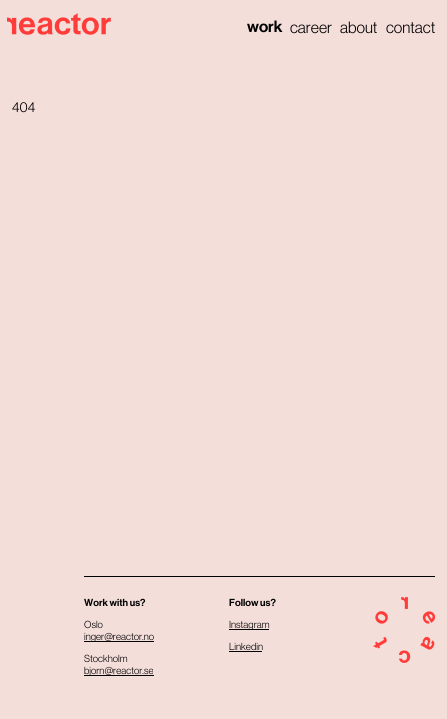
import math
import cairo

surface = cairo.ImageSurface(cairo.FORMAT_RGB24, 447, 719)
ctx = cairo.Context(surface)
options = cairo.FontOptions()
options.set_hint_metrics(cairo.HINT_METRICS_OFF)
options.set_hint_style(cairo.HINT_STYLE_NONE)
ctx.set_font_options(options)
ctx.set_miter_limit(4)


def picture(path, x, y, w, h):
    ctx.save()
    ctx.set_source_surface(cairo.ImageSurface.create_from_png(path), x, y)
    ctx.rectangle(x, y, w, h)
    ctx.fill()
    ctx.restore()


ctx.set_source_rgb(0.957, 0.871, 0.855)
ctx.paint()
picture("img1.png", 7, 13, 104, 22)
ctx.select_font_face("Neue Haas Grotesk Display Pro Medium")
ctx.set_font_size(16)
ctx.set_source_rgb(0, 0, 0)
ctx.move_to(247, 32)
ctx.show_text("work")
ctx.select_font_face("Neue Haas Grotesk Display Pro")
ctx.move_to(290, 33)
ctx.show_text("career")
ctx.move_to(340, 33)
ctx.show_text("about")
ctx.move_to(386, 33)
ctx.show_text("contact")
ctx.set_font_size(14)
ctx.move_to(12, 112)
ctx.show_text("404")
ctx.rectangle(84, 576, 351, 1)
ctx.fill()
ctx.select_font_face("Neue Haas Grotesk Display Pro Medium")
ctx.set_font_size(10)
ctx.move_to(84, 606)
ctx.show_text("Work with us?")
ctx.select_font_face("Neue Haas Grotesk Display Pro")
ctx.move_to(84, 628)
ctx.show_text("Oslo")
ctx.rectangle(84, 641, 70, 1)
ctx.fill()
ctx.move_to(84, 640)
ctx.show_text("inger@reactor.no")
ctx.move_to(84, 662)
ctx.show_text("Stockholm")
ctx.rectangle(84, 675, 70, 1)
ctx.fill()
ctx.move_to(84, 674)
ctx.show_text("bjorn@reactor.se")
ctx.select_font_face("Neue Haas Grotesk Display Pro Medium")
ctx.move_to(229, 606)
ctx.show_text("Follow us?")
ctx.rectangle(229, 629, 40, 1)
ctx.fill()
ctx.select_font_face("Neue Haas Grotesk Display Pro")
ctx.move_to(229, 628)
ctx.show_text("Instagram")
ctx.move_to(229, 650)
ctx.show_text("Linkedin")
ctx.rectangle(229, 651, 33, 1)
ctx.fill()
picture("img2.png", 373, 597, 62, 66)
surface.write_to_png("page.png")
